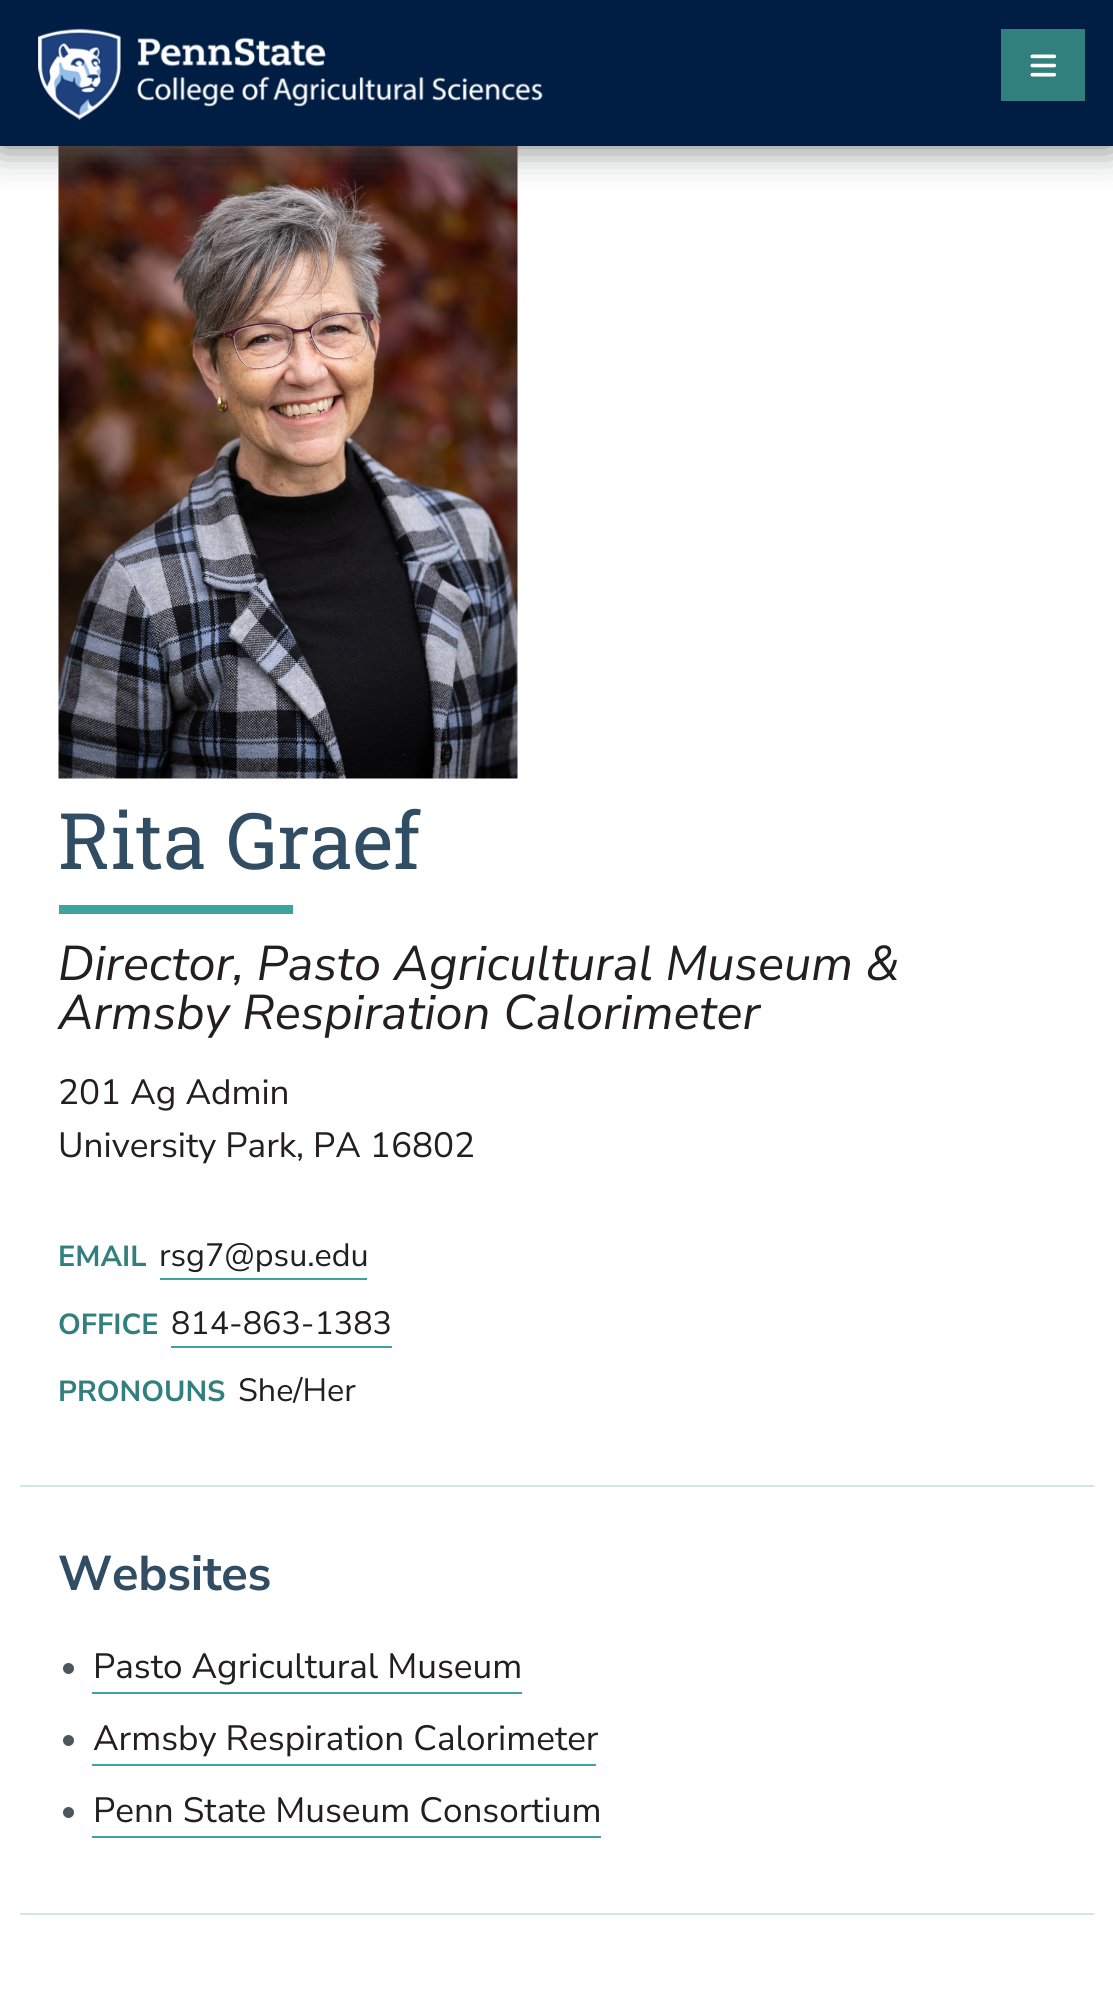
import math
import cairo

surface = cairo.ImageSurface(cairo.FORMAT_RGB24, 1113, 2006)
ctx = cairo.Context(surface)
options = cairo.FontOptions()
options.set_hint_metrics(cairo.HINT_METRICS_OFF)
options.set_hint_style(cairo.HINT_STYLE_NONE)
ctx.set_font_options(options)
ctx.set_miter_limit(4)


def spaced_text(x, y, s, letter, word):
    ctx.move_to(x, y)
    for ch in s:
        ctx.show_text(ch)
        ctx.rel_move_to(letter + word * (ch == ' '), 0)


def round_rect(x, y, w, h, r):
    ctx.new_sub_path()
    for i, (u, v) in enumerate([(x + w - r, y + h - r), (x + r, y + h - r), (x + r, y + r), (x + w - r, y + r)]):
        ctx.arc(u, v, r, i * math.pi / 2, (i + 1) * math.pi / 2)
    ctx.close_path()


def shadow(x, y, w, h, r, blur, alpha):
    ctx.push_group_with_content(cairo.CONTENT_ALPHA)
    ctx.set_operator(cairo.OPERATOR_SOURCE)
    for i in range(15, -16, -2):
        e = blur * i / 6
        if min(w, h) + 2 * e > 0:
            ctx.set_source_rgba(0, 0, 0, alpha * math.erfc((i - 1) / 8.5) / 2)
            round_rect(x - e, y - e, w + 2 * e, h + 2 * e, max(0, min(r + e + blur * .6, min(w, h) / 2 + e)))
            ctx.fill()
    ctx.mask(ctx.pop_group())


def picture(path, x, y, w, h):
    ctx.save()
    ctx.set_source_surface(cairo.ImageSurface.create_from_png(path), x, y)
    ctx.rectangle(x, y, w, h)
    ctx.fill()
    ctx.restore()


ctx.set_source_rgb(1, 1, 1)
ctx.paint()
picture("img3.png", 58, 146, 460, 633)
ctx.set_source_rgb(0.329, 0.345, 0.353)
shadow(0, 0, 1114, 146, 0, 19.5, 0.85)
ctx.set_source_rgb(0, 0.118, 0.267)
ctx.rectangle(0, 0, 1113, 146)
ctx.fill()
picture("img1.png", 38, 28, 505, 92)
ctx.set_source_rgb(0.196, 0.502, 0.49)
ctx.rectangle(1001, 29, 84, 72)
ctx.fill()
picture("img2.png", 1030, 54, 27, 23)
ctx.set_source_rgb(0.812, 0.91, 0.906)
ctx.rectangle(20, 1485, 1074, 2)
ctx.fill()
ctx.select_font_face("Roboto Slab")
ctx.set_font_size(78)
ctx.set_source_rgb(0.192, 0.302, 0.392)
ctx.move_to(58, 869)
ctx.show_text("Rita Graef")
ctx.set_source_rgb(0.243, 0.639, 0.62)
ctx.rectangle(59, 905, 234, 9)
ctx.fill()
ctx.select_font_face("Nunito Sans", cairo.FONT_SLANT_ITALIC)
ctx.set_font_size(48.75)
ctx.set_source_rgb(0.137, 0.118, 0.125)
ctx.move_to(58, 980)
ctx.show_text("Director, Pasto Agricultural Museum &")
ctx.move_to(58, 1029)
ctx.show_text("Armsby Respiration Calorimeter")
ctx.select_font_face("Nunito Sans")
ctx.set_font_size(35.1)
ctx.move_to(58, 1104)
ctx.show_text("201 Ag Admin")
ctx.move_to(58, 1157)
ctx.show_text("University Park")
ctx.move_to(296, 1157)
ctx.show_text(", PA 16802")
ctx.select_font_face("Nunito Sans", cairo.FONT_SLANT_NORMAL, cairo.FONT_WEIGHT_BOLD)
ctx.set_font_size(29)
ctx.set_source_rgb(0.196, 0.502, 0.49)
ctx.move_to(58, 1266)
ctx.show_text("EMAIL")
ctx.select_font_face("Nunito Sans")
ctx.set_font_size(32.25)
ctx.set_source_rgb(0.137, 0.118, 0.125)
ctx.move_to(159, 1266)
ctx.show_text("rsg7@psu.edu")
ctx.set_source_rgb(0.243, 0.639, 0.62)
ctx.rectangle(160, 1278, 207, 2)
ctx.fill()
ctx.select_font_face("Nunito Sans", cairo.FONT_SLANT_NORMAL, cairo.FONT_WEIGHT_BOLD)
ctx.set_font_size(29)
ctx.set_source_rgb(0.196, 0.502, 0.49)
ctx.move_to(58, 1334)
ctx.show_text("OFFICE")
ctx.select_font_face("Nunito Sans")
ctx.set_font_size(32.25)
ctx.set_source_rgb(0.137, 0.118, 0.125)
ctx.move_to(171, 1334)
ctx.show_text("814-863-1383")
ctx.set_source_rgb(0.243, 0.639, 0.62)
ctx.rectangle(171, 1346, 221, 2)
ctx.fill()
ctx.select_font_face("Nunito Sans", cairo.FONT_SLANT_NORMAL, cairo.FONT_WEIGHT_BOLD)
ctx.set_font_size(29)
ctx.set_source_rgb(0.196, 0.502, 0.49)
ctx.move_to(58, 1401)
ctx.show_text("PRONOUNS")
ctx.select_font_face("Nunito Sans")
ctx.set_font_size(32.25)
ctx.set_source_rgb(0.137, 0.118, 0.125)
ctx.move_to(238, 1401)
ctx.show_text("She/Her")
ctx.set_source_rgb(0.812, 0.91, 0.906)
ctx.rectangle(20, 1913, 1074, 2)
ctx.fill()
ctx.select_font_face("Nunito Sans", cairo.FONT_SLANT_NORMAL, cairo.FONT_WEIGHT_BOLD)
ctx.set_font_size(48.75)
ctx.set_source_rgb(0.192, 0.302, 0.392)
spaced_text(58, 1590, "Websites", -0.25, 0)
ctx.set_source_rgb(0.302, 0.337, 0.357)
ctx.new_path()
ctx.arc(68.5, 1668.5, 5.5, 0, 2 * math.pi)
ctx.fill()
ctx.select_font_face("Nunito Sans")
ctx.set_font_size(35.1)
ctx.set_source_rgb(0.137, 0.118, 0.125)
ctx.move_to(93, 1678)
ctx.show_text("Pasto Agricultural Museum")
ctx.set_source_rgb(0.243, 0.639, 0.62)
ctx.rectangle(92, 1692, 430, 2)
ctx.fill()
ctx.set_source_rgb(0.302, 0.337, 0.357)
ctx.arc(68.5, 1740.5, 5.5, 0, 2 * math.pi)
ctx.fill()
ctx.set_source_rgb(0.137, 0.118, 0.125)
ctx.move_to(93, 1750)
ctx.show_text("Armsby Respiration Calorimeter")
ctx.set_source_rgb(0.243, 0.639, 0.62)
ctx.rectangle(92, 1764, 504, 2)
ctx.fill()
ctx.set_source_rgb(0.302, 0.337, 0.357)
ctx.arc(68.5, 1812.5, 5.5, 0, 2 * math.pi)
ctx.fill()
ctx.set_source_rgb(0.137, 0.118, 0.125)
ctx.move_to(93, 1822)
ctx.show_text("Penn State Museum Consortium")
ctx.set_source_rgb(0.243, 0.639, 0.62)
ctx.rectangle(92, 1836, 509, 2)
ctx.fill()
surface.write_to_png("page.png")
